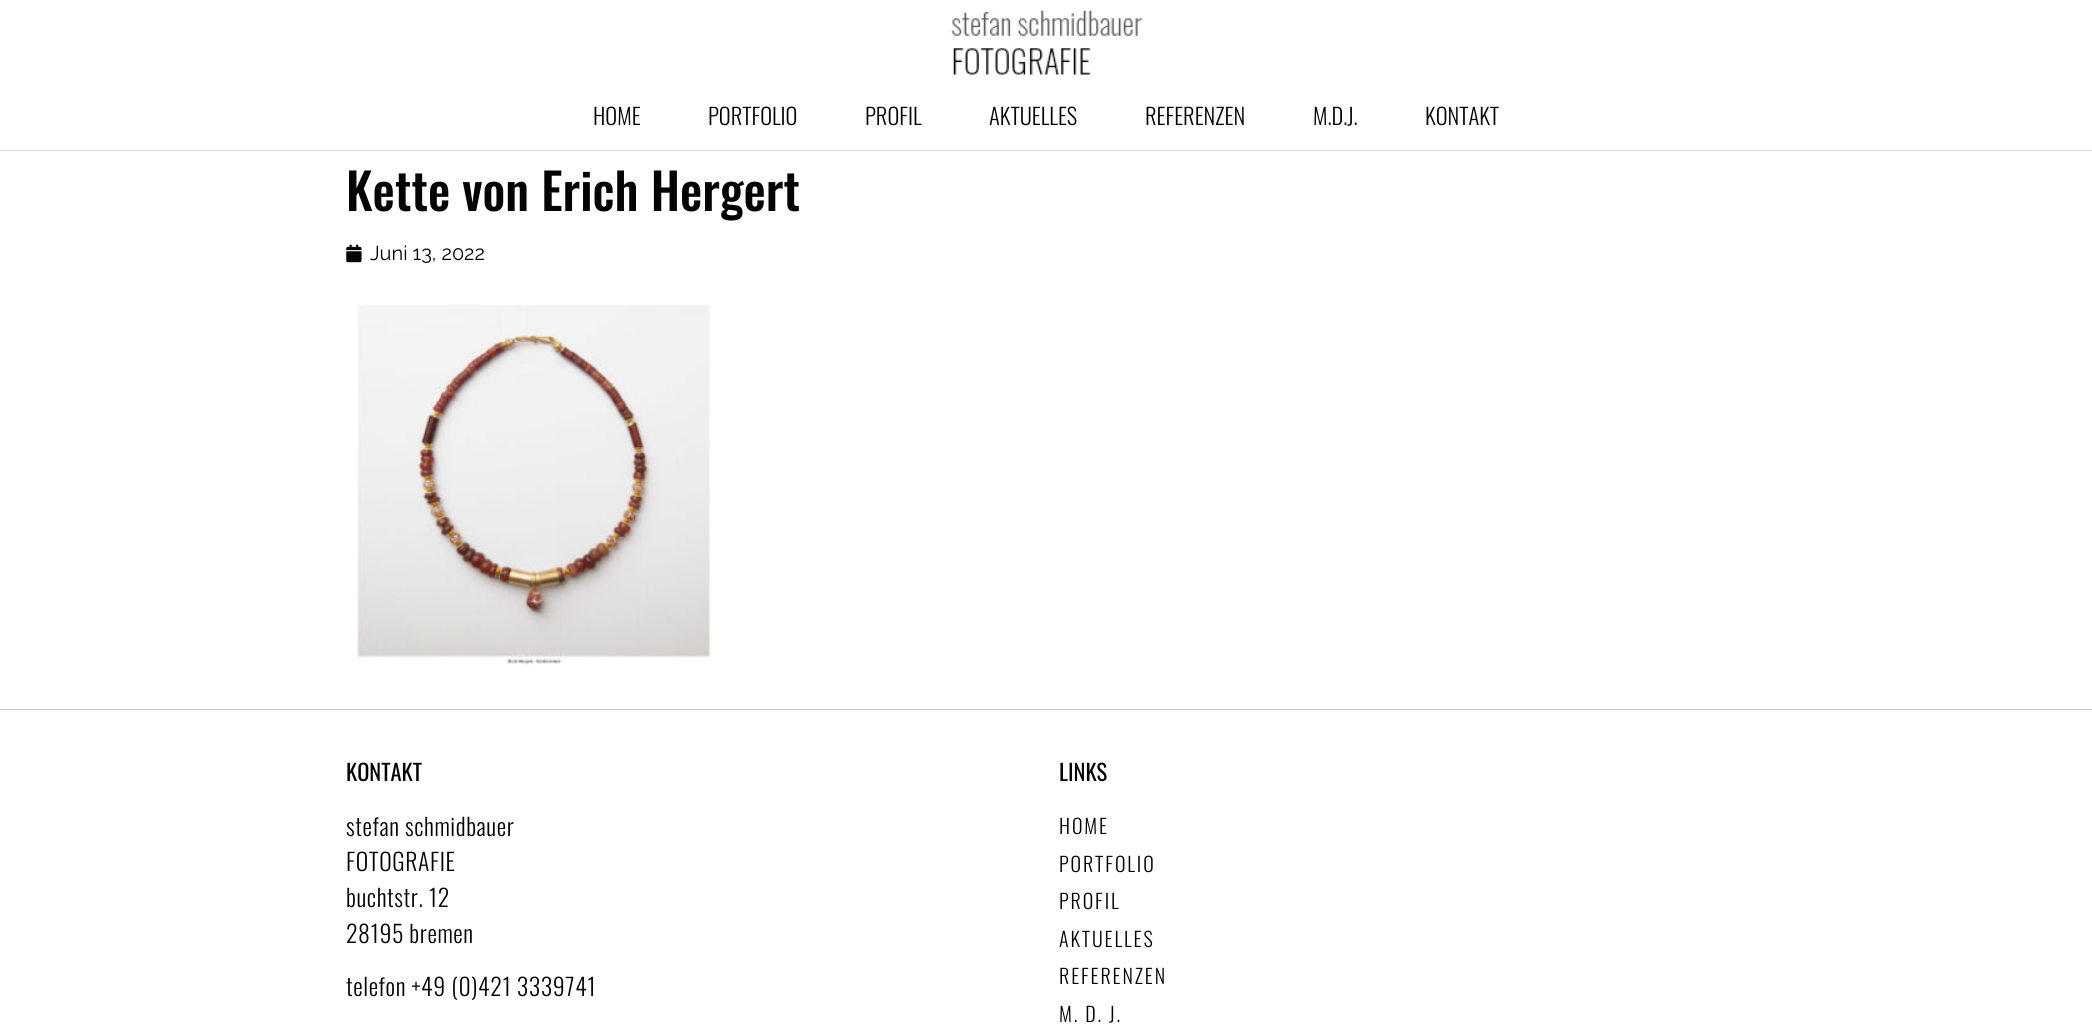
import math
import cairo

surface = cairo.ImageSurface(cairo.FORMAT_RGB24, 2092, 1025)
ctx = cairo.Context(surface)
options = cairo.FontOptions()
options.set_hint_metrics(cairo.HINT_METRICS_OFF)
options.set_hint_style(cairo.HINT_STYLE_NONE)
ctx.set_font_options(options)
ctx.set_miter_limit(4)


def spaced_text(x, y, s, letter, word):
    ctx.move_to(x, y)
    for ch in s:
        ctx.show_text(ch)
        ctx.rel_move_to(letter + word * (ch == ' '), 0)


def picture(path, x, y, w, h):
    ctx.save()
    ctx.set_source_surface(cairo.ImageSurface.create_from_png(path), x, y)
    ctx.rectangle(x, y, w, h)
    ctx.fill()
    ctx.restore()


ctx.set_source_rgb(1, 1, 1)
ctx.paint()
ctx.set_source_rgb(0.839, 0.839, 0.839)
ctx.rectangle(0, 150, 2092, 1)
ctx.fill()
picture("img1.png", 951, 10, 192, 65)
ctx.select_font_face("Oswald Light")
ctx.set_font_size(22.5)
ctx.set_source_rgb(0.02, 0.016, 0.016)
ctx.move_to(593, 125)
ctx.show_text("HOME")
ctx.move_to(708, 125)
ctx.show_text("PORTFOLIO")
ctx.move_to(865, 125)
ctx.show_text("PROFIL")
ctx.move_to(989, 125)
ctx.show_text("AKTUELLES")
ctx.move_to(1145, 125)
ctx.show_text("REFERENZEN")
ctx.move_to(1313, 125)
ctx.show_text("M.D.J.")
ctx.move_to(1425, 125)
ctx.show_text("KONTAKT")
ctx.select_font_face("Oswald Medium")
ctx.set_font_size(50)
ctx.move_to(346, 211)
ctx.show_text("Kette von Erich Hergert")
picture("img2.png", 346, 244, 16, 19)
ctx.select_font_face("Raleway")
ctx.set_font_size(20)
ctx.move_to(370, 260)
ctx.show_text("Juni 13, 2022")
picture("img3.png", 357, 304, 354, 362)
ctx.set_source_rgb(0.784, 0.784, 0.784)
ctx.rectangle(0, 709, 2092, 1)
ctx.fill()
ctx.select_font_face("Oswald")
ctx.set_font_size(22.5)
ctx.set_source_rgb(0.02, 0.016, 0.016)
ctx.move_to(346, 781)
ctx.show_text("KONTAKT")
ctx.select_font_face("Oswald Light")
ctx.set_font_size(23.75)
spaced_text(346, 836, "stefan schmidbauer", 0.6, 0)
spaced_text(346, 871, "FOTOGRAFIE", 0.6, 0)
spaced_text(346, 907, "buchtstr. 12", 0.6, 0)
spaced_text(346, 943, "28195 bremen", 0.6, 0)
spaced_text(346, 996, "telefon +49 (0)421 3339741", 0.6, 0)
ctx.select_font_face("Oswald")
ctx.set_font_size(22.5)
ctx.move_to(1059, 781)
ctx.show_text("LINKS")
ctx.select_font_face("Oswald Light")
ctx.set_font_size(20)
spaced_text(1059, 834, "HOME", 1.9, 0)
spaced_text(1059, 872, "PORTFOLIO", 1.9, 0)
spaced_text(1059, 909, "PROFIL", 1.9, 0)
spaced_text(1059, 947, "AKTUELLES", 1.9, 0)
spaced_text(1059, 984, "REFERENZEN", 1.9, 0)
spaced_text(1059, 1022, "M. D. J.", 1.9, 0)
surface.write_to_png("page.png")
